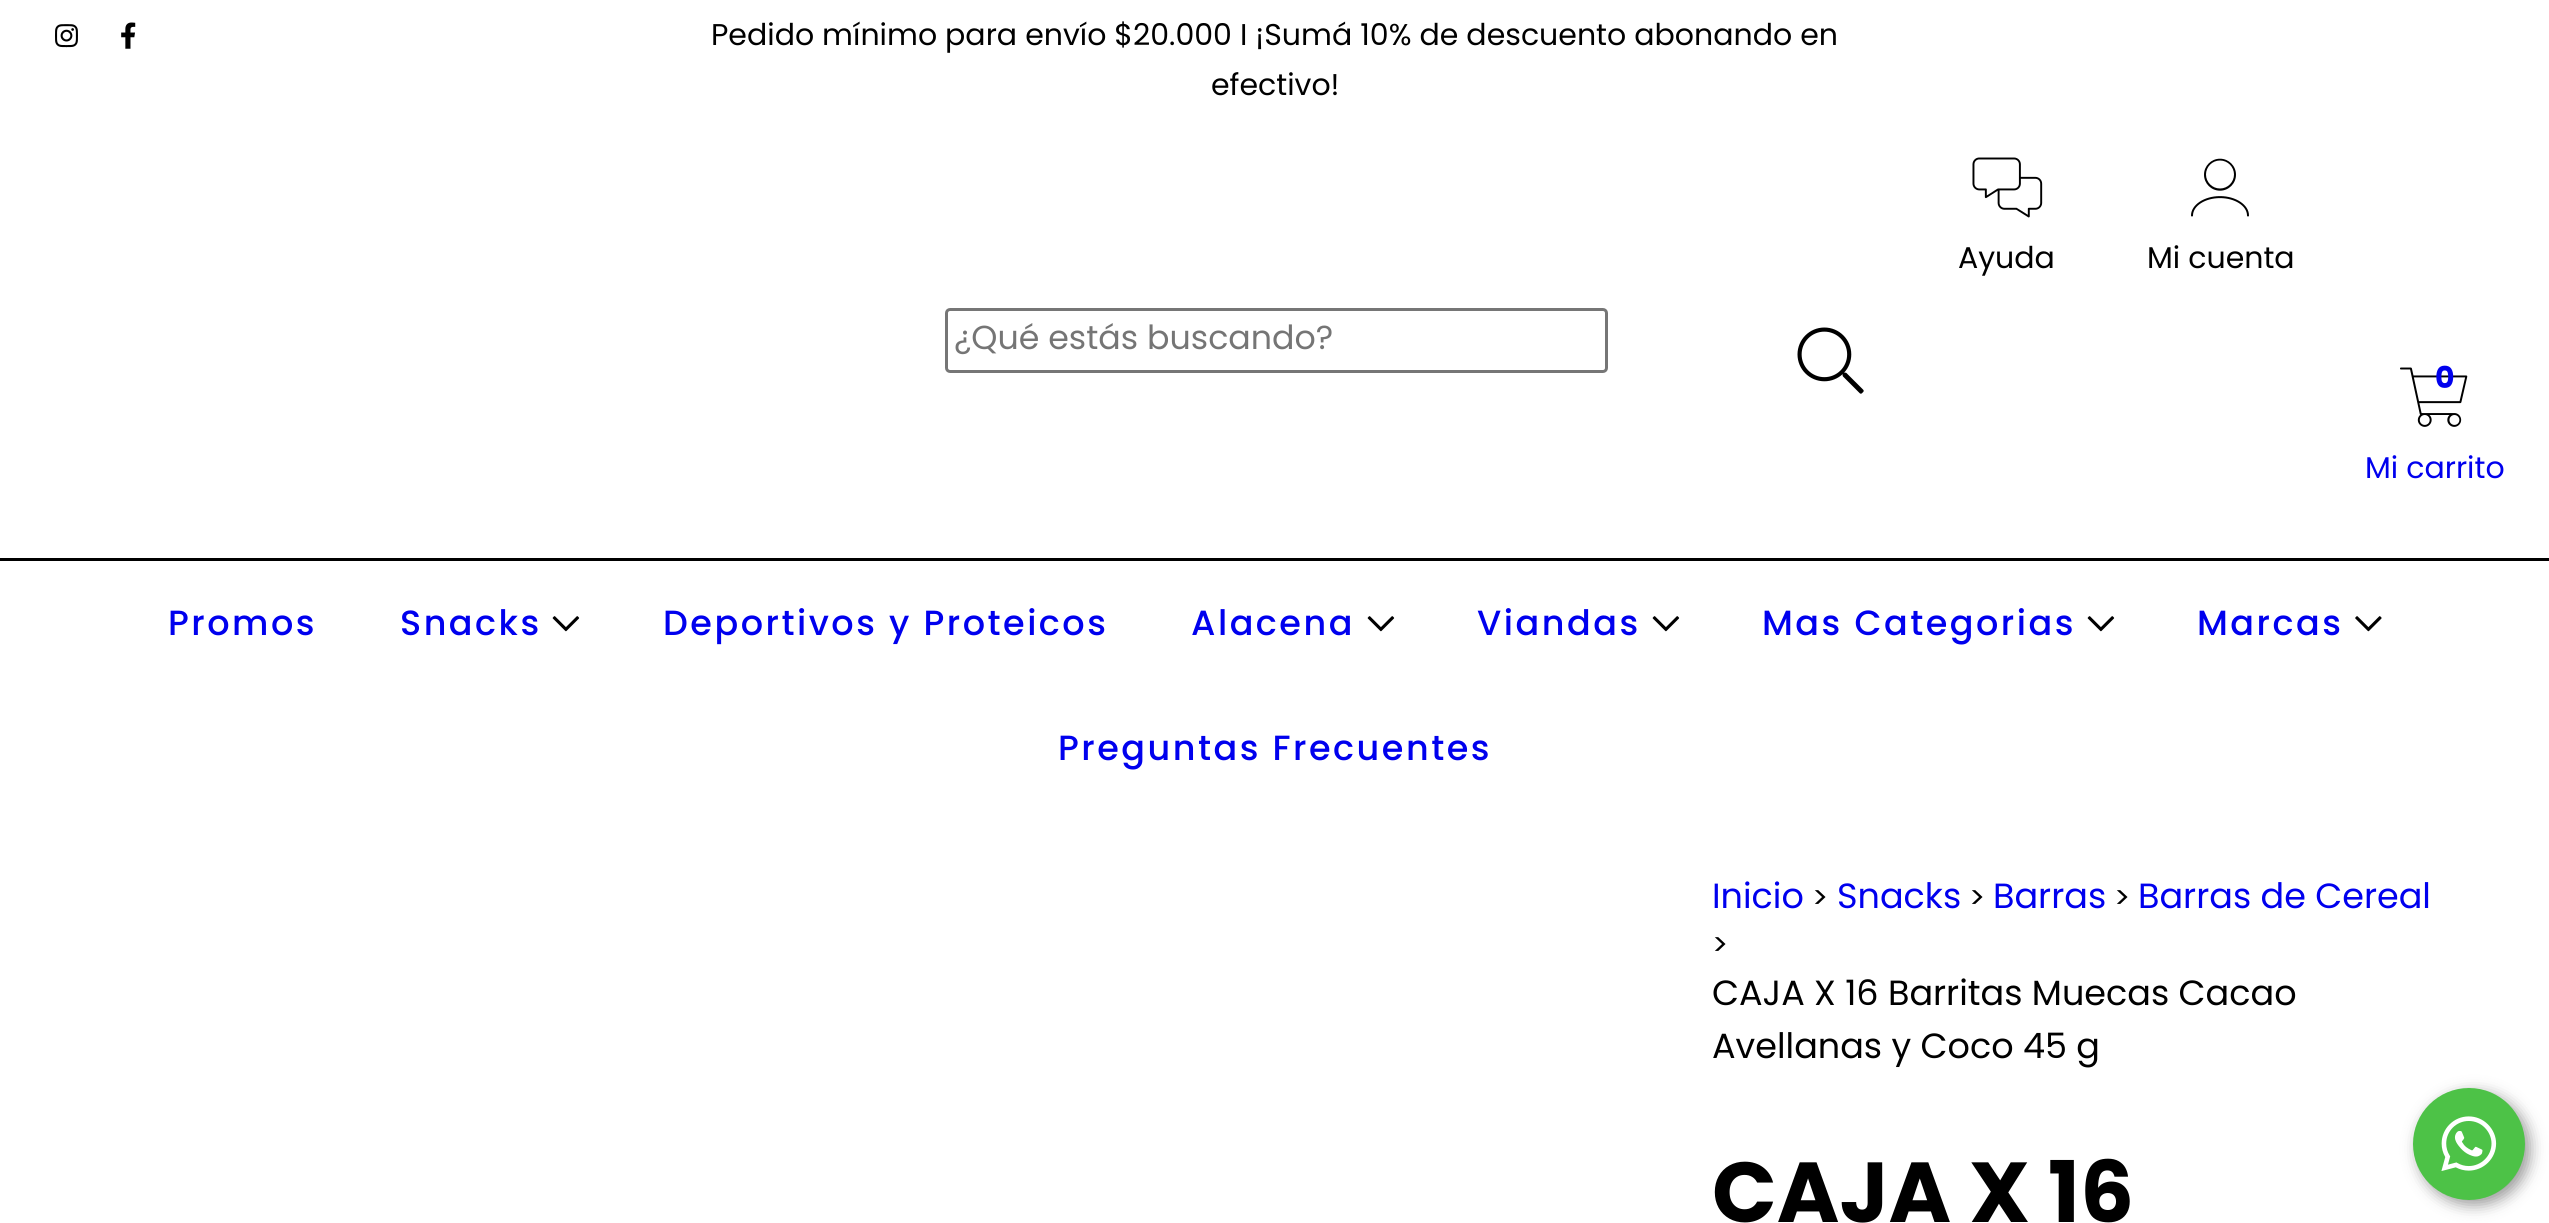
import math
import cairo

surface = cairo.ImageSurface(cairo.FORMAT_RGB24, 2549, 1223)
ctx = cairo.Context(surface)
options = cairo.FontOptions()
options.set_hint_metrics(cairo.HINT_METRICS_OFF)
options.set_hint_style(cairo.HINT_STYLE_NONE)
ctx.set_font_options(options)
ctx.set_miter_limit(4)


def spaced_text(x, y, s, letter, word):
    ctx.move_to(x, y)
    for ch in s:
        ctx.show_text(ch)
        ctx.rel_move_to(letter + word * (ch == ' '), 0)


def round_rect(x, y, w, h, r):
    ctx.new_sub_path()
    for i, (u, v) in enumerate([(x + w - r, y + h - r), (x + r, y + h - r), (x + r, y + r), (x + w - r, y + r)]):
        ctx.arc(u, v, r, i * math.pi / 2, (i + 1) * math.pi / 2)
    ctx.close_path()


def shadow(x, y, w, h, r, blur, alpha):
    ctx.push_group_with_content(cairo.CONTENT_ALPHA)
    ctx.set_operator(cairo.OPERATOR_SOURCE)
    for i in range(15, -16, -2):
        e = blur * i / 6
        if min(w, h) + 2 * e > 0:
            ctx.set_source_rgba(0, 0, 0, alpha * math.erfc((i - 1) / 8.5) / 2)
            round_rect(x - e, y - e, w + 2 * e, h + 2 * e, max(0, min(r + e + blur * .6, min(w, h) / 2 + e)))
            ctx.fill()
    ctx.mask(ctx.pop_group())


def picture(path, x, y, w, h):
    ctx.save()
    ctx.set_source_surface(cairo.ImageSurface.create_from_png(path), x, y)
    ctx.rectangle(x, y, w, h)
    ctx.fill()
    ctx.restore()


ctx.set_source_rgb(1, 1, 1)
ctx.paint()
picture("img1.png", 55, 24, 23, 24)
picture("img2.png", 121, 22, 15, 27)
ctx.select_font_face("Poppins")
ctx.set_font_size(30)
ctx.set_source_rgb(0, 0, 0)
ctx.move_to(711, 45)
ctx.show_text("Pedido mínimo para envío $20.000 I ¡Sumá 10% de descuento abonando en")
ctx.move_to(1211, 95)
ctx.show_text("efectivo!")
round_rect(946.5, 309.5, 660, 62, 3.5)
ctx.set_source_rgb(0.463, 0.463, 0.463)
ctx.set_line_width(3)
ctx.stroke()
ctx.set_font_size(33.25)
ctx.set_source_rgb(0.459, 0.459, 0.459)
ctx.move_to(954, 349)
ctx.show_text("¿Qué estás buscando?")
picture("img3.png", 1797, 327, 67, 67)
picture("img4.png", 1972, 157, 71, 61)
ctx.set_font_size(30)
ctx.set_source_rgb(0, 0, 0)
ctx.move_to(1958, 268)
ctx.show_text("Ayuda")
picture("img5.png", 2191, 158, 58, 59)
ctx.move_to(2147, 268)
ctx.show_text("Mi cuenta")
picture("img6.png", 2400, 367, 68, 60)
ctx.select_font_face("Poppins", cairo.FONT_SLANT_NORMAL, cairo.FONT_WEIGHT_BOLD)
ctx.set_source_rgb(0, 0, 0.933)
ctx.move_to(2435, 388)
ctx.show_text("0")
ctx.select_font_face("Poppins")
ctx.move_to(2365, 478)
ctx.show_text("Mi carrito")
ctx.set_source_rgb(0, 0, 0)
ctx.rectangle(0, 558, 2549, 3)
ctx.fill()
ctx.select_font_face("Poppins Medium")
ctx.set_font_size(35)
ctx.set_source_rgb(0, 0, 0.933)
spaced_text(168, 635, "Promos", 2.5, 0)
spaced_text(400, 635, "Snacks", 2.5, 0)
picture("img7.png", 552, 616, 28, 16)
spaced_text(663, 635, "Deportivos y Proteicos", 2.5, 0)
spaced_text(1191, 635, "Alacena", 2.5, 0)
picture("img7.png", 1367, 616, 28, 16)
spaced_text(1477, 635, "Viandas", 2.5, 0)
picture("img7.png", 1652, 616, 28, 16)
spaced_text(1762, 635, "Mas Categorias", 2.5, 0)
picture("img7.png", 2087, 616, 28, 16)
spaced_text(2197, 635, "Marcas", 2.5, 0)
picture("img8.png", 2355, 616, 27, 16)
spaced_text(1058, 760, "Preguntas Frecuentes", 2.5, 0)
ctx.select_font_face("Poppins")
ctx.move_to(1712, 908)
ctx.show_text("Inicio")
ctx.set_font_size(30)
ctx.set_source_rgb(0, 0, 0)
ctx.move_to(1812, 908)
ctx.show_text(">")
ctx.set_font_size(35)
ctx.set_source_rgb(0, 0, 0.933)
ctx.move_to(1837, 908)
ctx.show_text("Snacks")
ctx.set_font_size(30)
ctx.set_source_rgb(0, 0, 0)
ctx.move_to(1969, 908)
ctx.show_text(">")
ctx.set_font_size(35)
ctx.set_source_rgb(0, 0, 0.933)
ctx.move_to(1993, 908)
ctx.show_text("Barras")
ctx.set_font_size(30)
ctx.set_source_rgb(0, 0, 0)
ctx.move_to(2114, 908)
ctx.show_text(">")
ctx.set_font_size(35)
ctx.set_source_rgb(0, 0, 0.933)
ctx.move_to(2138, 908)
ctx.show_text("Barras de Cereal")
ctx.set_font_size(30)
ctx.set_source_rgb(0, 0, 0)
ctx.move_to(1712, 955)
ctx.show_text(">")
ctx.set_font_size(35)
ctx.move_to(1712, 1005)
ctx.show_text("CAJA X 16 Barritas Muecas Cacao")
ctx.move_to(1712, 1058)
ctx.show_text("Avellanas y Coco 45 g")
ctx.select_font_face("Poppins", cairo.FONT_SLANT_NORMAL, cairo.FONT_WEIGHT_BOLD)
ctx.set_font_size(85)
ctx.move_to(1712, 1222)
ctx.show_text("CAJA X 16")
ctx.set_source_rgb(0, 0, 0)
shadow(2418, 1093, 112, 112, 56, 7.5, 0.4)
ctx.set_source_rgb(0.302, 0.761, 0.278)
ctx.arc(2469, 1144, 56, 0, 2 * math.pi)
ctx.fill()
picture("img9.png", 2441, 1116, 56, 55)
surface.write_to_png("page.png")
